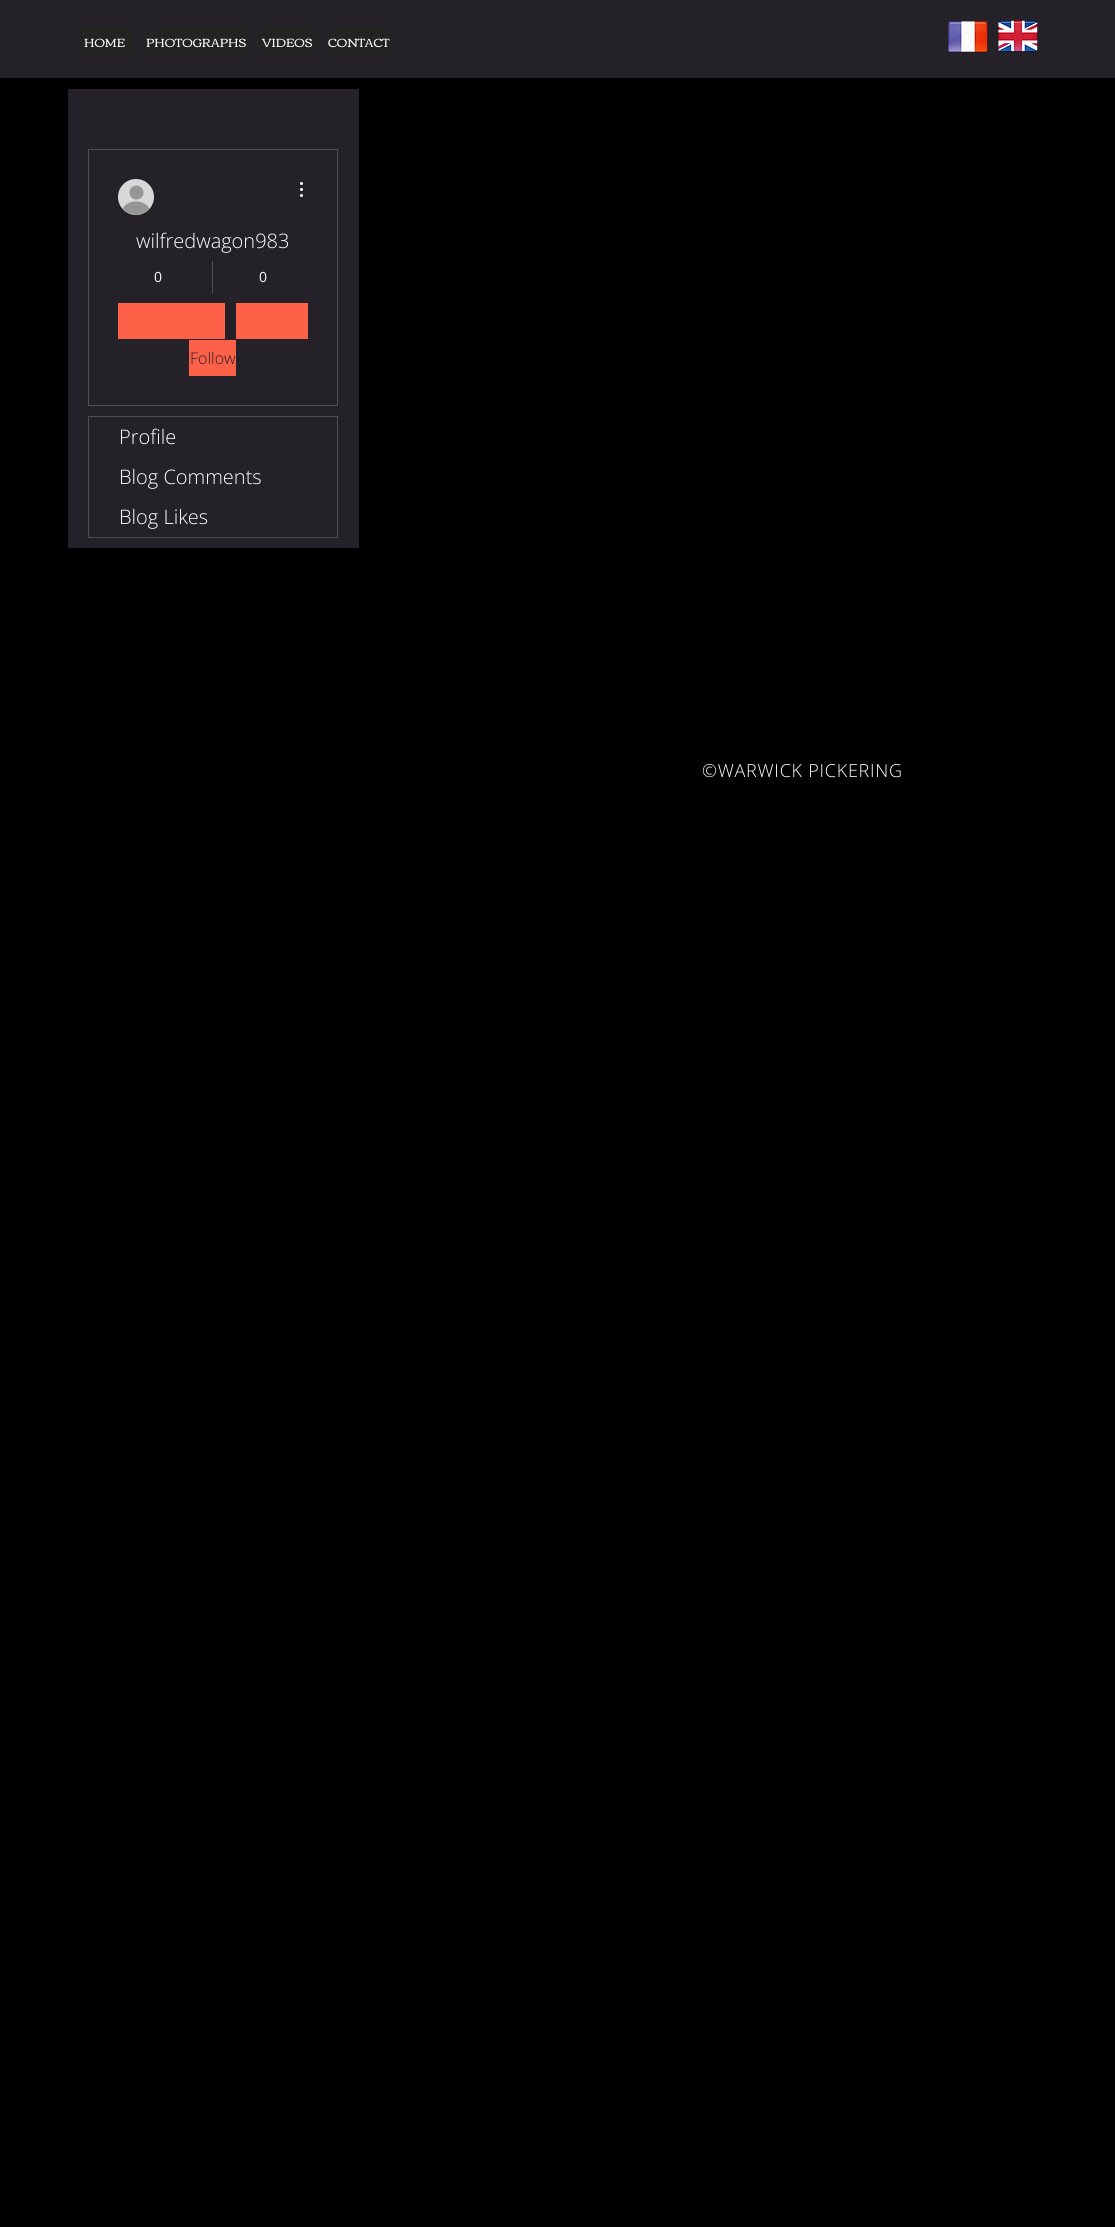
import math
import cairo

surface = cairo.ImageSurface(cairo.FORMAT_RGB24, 1115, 2227)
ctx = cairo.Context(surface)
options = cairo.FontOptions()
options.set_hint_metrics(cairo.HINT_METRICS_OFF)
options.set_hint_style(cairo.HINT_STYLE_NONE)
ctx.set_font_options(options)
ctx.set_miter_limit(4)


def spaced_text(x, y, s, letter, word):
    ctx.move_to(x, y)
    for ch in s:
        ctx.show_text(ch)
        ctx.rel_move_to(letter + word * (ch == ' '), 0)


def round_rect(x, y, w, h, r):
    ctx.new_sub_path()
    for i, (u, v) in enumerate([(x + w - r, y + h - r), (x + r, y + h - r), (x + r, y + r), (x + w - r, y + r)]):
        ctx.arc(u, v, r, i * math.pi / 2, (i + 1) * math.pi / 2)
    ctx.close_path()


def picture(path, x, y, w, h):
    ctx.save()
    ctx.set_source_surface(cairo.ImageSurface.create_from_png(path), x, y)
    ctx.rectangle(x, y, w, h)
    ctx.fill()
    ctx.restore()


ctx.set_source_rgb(0, 0, 0)
ctx.paint()
ctx.set_source_rgb(0.145, 0.129, 0.157)
ctx.rectangle(0, 0, 1115, 78)
ctx.fill()
ctx.set_source_rgb(0.137, 0.137, 0.137)
round_rect(78, 27, 55, 30, 10)
ctx.fill()
ctx.select_font_face("Corben")
ctx.set_font_size(12)
ctx.set_source_rgb(1, 1, 1)
ctx.move_to(84, 47)
ctx.show_text("HOME")
ctx.set_source_rgb(0.137, 0.137, 0.137)
round_rect(143, 27, 108, 30, 10)
ctx.fill()
ctx.set_source_rgb(1, 1, 1)
ctx.move_to(146, 47)
ctx.show_text("PHOTOGRAPHS")
ctx.set_source_rgb(0.145, 0.129, 0.157)
ctx.rectangle(68, 89, 291, 459)
ctx.fill()
ctx.rectangle(88.5, 149.5, 249, 256)
ctx.set_source_rgb(0.318, 0.302, 0.325)
ctx.set_line_width(1)
ctx.stroke()
ctx.set_source_rgb(0.847, 0.847, 0.847)
ctx.arc(136, 197, 18, 0, 2 * math.pi)
ctx.fill()
ctx.set_source_rgb(0.588, 0.588, 0.588)
ctx.arc(136.5, 192.5, 7, 0, 2 * math.pi)
ctx.fill()
ctx.new_path()
ctx.move_to(149.5, 208.5)
ctx.curve_to(142.5, 217, 129.5, 217, 122.5, 208.5)
ctx.curve_to(128.5, 199, 143.5, 199, 149.5, 208.5)
ctx.close_path()
ctx.fill()
picture("img1.png", 300, 182, 3, 15)
ctx.select_font_face("Open Sans Light")
ctx.set_font_size(20)
ctx.set_source_rgb(1, 1, 1)
ctx.move_to(136, 248)
ctx.show_text("wilfredwagon983")
ctx.select_font_face("Open Sans")
ctx.set_font_size(14)
ctx.move_to(154, 282)
ctx.show_text("0")
ctx.set_source_rgb(0.318, 0.302, 0.325)
ctx.rectangle(212, 261, 1, 32)
ctx.fill()
ctx.set_source_rgb(1, 1, 1)
ctx.move_to(259, 282)
ctx.show_text("0")
ctx.set_source_rgb(0.996, 0.38, 0.282)
ctx.rectangle(118, 303, 107, 36)
ctx.fill()
ctx.rectangle(236, 303, 72, 36)
ctx.fill()
ctx.rectangle(189, 340, 47, 36)
ctx.fill()
ctx.select_font_face("Open Sans Light")
ctx.set_font_size(16)
ctx.set_source_rgb(0.145, 0.129, 0.157)
ctx.move_to(190, 364)
ctx.show_text("Follow")
ctx.rectangle(88.5, 416.5, 249, 121)
ctx.set_source_rgb(0.318, 0.302, 0.325)
ctx.stroke()
ctx.set_font_size(20)
ctx.set_source_rgb(1, 1, 1)
ctx.move_to(119, 444)
ctx.show_text("Profile")
ctx.move_to(119, 484)
ctx.show_text("Blog Comments")
ctx.move_to(119, 524)
ctx.show_text("Blog Likes")
ctx.set_source_rgb(0.137, 0.137, 0.137)
round_rect(258, 27, 60, 30, 10)
ctx.fill()
ctx.select_font_face("Corben")
ctx.set_font_size(12)
ctx.set_source_rgb(1, 1, 1)
ctx.move_to(262, 47)
ctx.show_text("VIDEOS")
ctx.set_source_rgb(0.137, 0.137, 0.137)
round_rect(328, 27, 63, 30, 10)
ctx.fill()
ctx.set_source_rgb(1, 1, 1)
ctx.move_to(328, 47)
ctx.show_text("CONTACT")
picture("img2.png", 948, 21, 40, 32)
picture("img3.png", 998, 18, 40, 34)
ctx.select_font_face("Open Sans Light")
ctx.set_font_size(18)
spaced_text(702, 777, "©WARWICK PICKERING", 0.75, 0)
surface.write_to_png("page.png")
